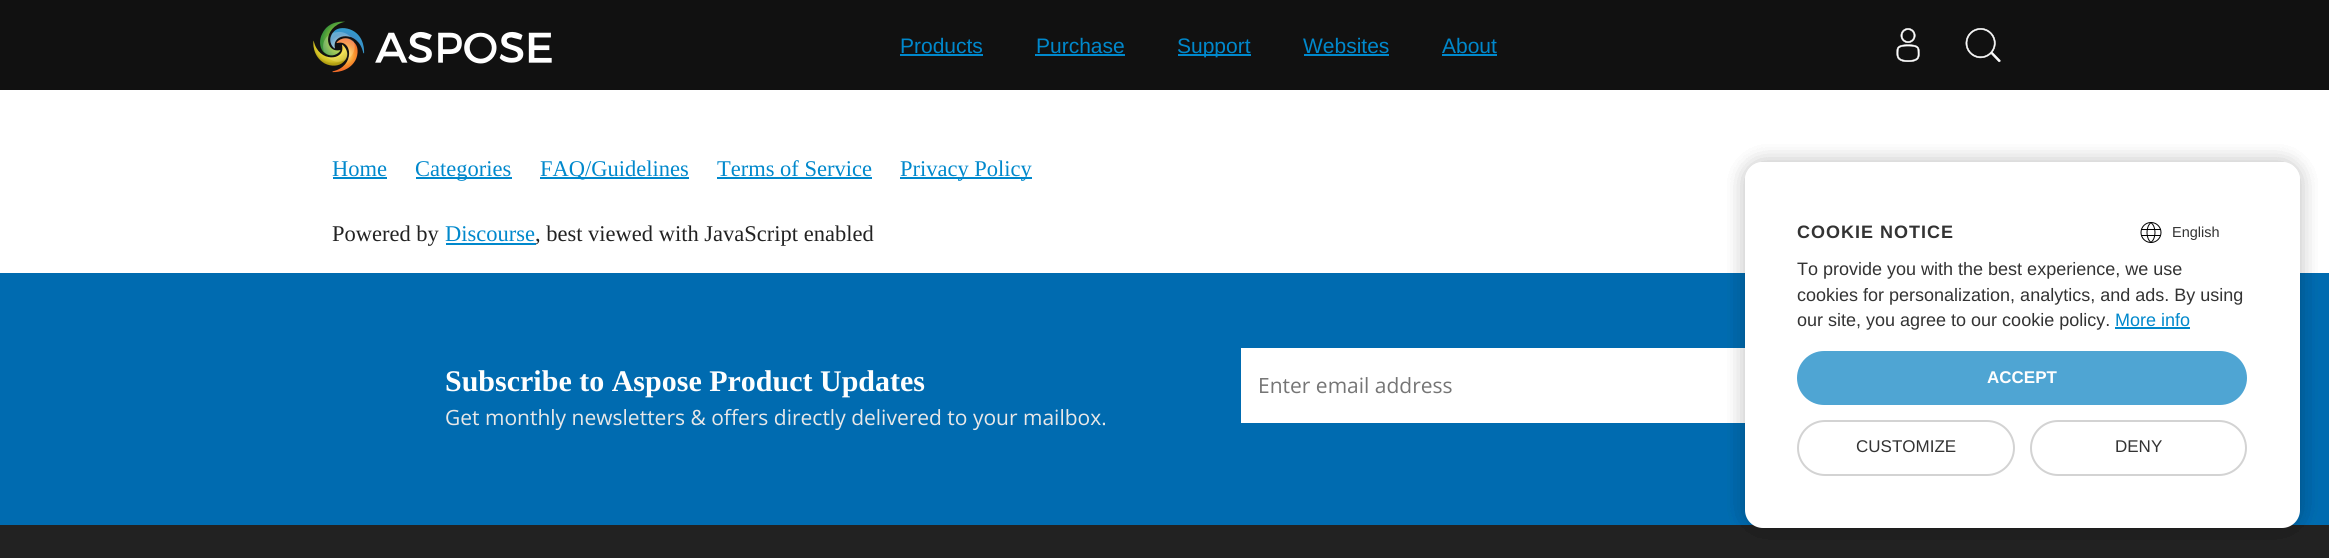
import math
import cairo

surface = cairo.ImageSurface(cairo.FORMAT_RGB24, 2329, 558)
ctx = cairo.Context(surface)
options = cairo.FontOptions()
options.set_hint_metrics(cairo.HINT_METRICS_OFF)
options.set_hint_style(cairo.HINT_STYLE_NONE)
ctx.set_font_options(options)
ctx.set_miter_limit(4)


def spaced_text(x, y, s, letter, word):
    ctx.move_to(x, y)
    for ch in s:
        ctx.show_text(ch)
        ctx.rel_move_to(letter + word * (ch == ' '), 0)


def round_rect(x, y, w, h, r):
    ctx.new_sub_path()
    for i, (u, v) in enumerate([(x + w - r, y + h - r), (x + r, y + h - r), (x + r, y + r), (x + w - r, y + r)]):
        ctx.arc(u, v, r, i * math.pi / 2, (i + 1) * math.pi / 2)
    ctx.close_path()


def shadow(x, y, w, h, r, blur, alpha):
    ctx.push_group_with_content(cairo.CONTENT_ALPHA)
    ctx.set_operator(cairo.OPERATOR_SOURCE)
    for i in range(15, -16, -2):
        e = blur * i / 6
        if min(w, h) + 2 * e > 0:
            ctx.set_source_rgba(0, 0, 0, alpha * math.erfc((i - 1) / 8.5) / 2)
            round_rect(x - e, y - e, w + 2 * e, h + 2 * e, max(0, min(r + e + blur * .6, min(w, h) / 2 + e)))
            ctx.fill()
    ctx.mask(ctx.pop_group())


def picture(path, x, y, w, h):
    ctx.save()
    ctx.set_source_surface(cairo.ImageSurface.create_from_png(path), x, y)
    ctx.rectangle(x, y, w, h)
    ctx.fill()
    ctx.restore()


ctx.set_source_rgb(1, 1, 1)
ctx.paint()
ctx.set_source_rgb(0.067, 0.067, 0.067)
ctx.rectangle(0, 0, 2329, 90)
ctx.fill()
picture("img1.png", 313, 21, 239, 52)
ctx.select_font_face("Liberation Sans")
ctx.set_font_size(21)
ctx.set_source_rgb(0, 0.533, 0.8)
ctx.move_to(900, 53)
ctx.show_text("Products")
ctx.rectangle(900, 54, 83, 2)
ctx.fill()
ctx.move_to(1036, 53)
ctx.show_text("Purchase")
ctx.rectangle(1035, 54, 90, 2)
ctx.fill()
ctx.rectangle(1178, 54, 73, 2)
ctx.fill()
ctx.move_to(1177, 53)
ctx.show_text("Support")
ctx.move_to(1303, 53)
ctx.show_text("Websites")
ctx.rectangle(1304, 54, 85, 2)
ctx.fill()
ctx.move_to(1442, 53)
ctx.show_text("About")
ctx.rectangle(1442, 54, 55, 2)
ctx.fill()
picture("img2.png", 1896, 28, 24, 34)
picture("img3.png", 1965, 28, 36, 35)
ctx.set_source_rgb(0, 0.42, 0.69)
ctx.rectangle(0, 273, 2329, 252)
ctx.fill()
ctx.set_source_rgb(1, 1, 1)
ctx.rectangle(1241, 348, 504, 75)
ctx.fill()
gradient = cairo.LinearGradient(1165, 525, 1165, 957)
gradient.add_color_stop_rgba(0.3, 0.133, 0.133, 0.133, 1)
gradient.add_color_stop_rgba(1, 0.267, 0.267, 0.267, 1)
ctx.set_source(gradient)
ctx.rectangle(0, 525, 2329, 33)
ctx.fill()
ctx.set_source_rgb(0, 0, 0)
shadow(1745, 162, 555, 366, 18, 10, 0.1)
ctx.select_font_face("Liberation Serif")
ctx.set_font_size(22.5)
ctx.set_source_rgb(0, 0.533, 0.8)
ctx.move_to(332, 176)
ctx.show_text("Home")
ctx.rectangle(333, 177, 54, 2)
ctx.fill()
ctx.rectangle(416, 177, 96, 2)
ctx.fill()
ctx.move_to(415, 176)
ctx.show_text("Categories")
ctx.rectangle(540, 177, 149, 2)
ctx.fill()
ctx.move_to(540, 176)
ctx.show_text("FAQ/Guidelines")
ctx.move_to(717, 176)
ctx.show_text("Terms of Service")
ctx.rectangle(717, 177, 155, 2)
ctx.fill()
ctx.rectangle(900, 177, 132, 2)
ctx.fill()
ctx.move_to(900, 176)
ctx.show_text("Privacy Policy")
ctx.set_source_rgb(0.133, 0.133, 0.133)
ctx.move_to(332, 241)
ctx.show_text("Powered by")
ctx.set_source_rgb(0, 0.533, 0.8)
ctx.move_to(445, 241)
ctx.show_text("Discourse")
ctx.rectangle(446, 243, 90, 2)
ctx.fill()
ctx.set_source_rgb(0.133, 0.133, 0.133)
ctx.move_to(535, 241)
ctx.show_text(", best viewed with JavaScript enabled")
ctx.set_source_rgb(0, 0, 0)
shadow(1745, 162, 555, 366, 18, 10, 0.1)
ctx.select_font_face("Liberation Serif", cairo.FONT_SLANT_NORMAL, cairo.FONT_WEIGHT_BOLD)
ctx.set_font_size(30)
ctx.set_source_rgb(0.996, 0.996, 0.996)
ctx.move_to(445, 391)
ctx.show_text("Subscribe to Aspose Product Updates")
ctx.select_font_face("Open Sans")
ctx.set_font_size(21)
ctx.set_source_rgb(0.91, 0.91, 0.91)
ctx.move_to(445, 425)
ctx.show_text("Get monthly newsletters & offers directly delivered to your mailbox.")
ctx.set_source_rgb(0.459, 0.459, 0.459)
ctx.move_to(1258, 393)
ctx.show_text("Enter email address")
ctx.set_source_rgb(0, 0, 0)
shadow(1745, 162, 555, 366, 18, 10, 0.1)
ctx.set_source_rgb(1, 1, 1)
round_rect(1745, 162, 555, 366, 18)
ctx.fill()
ctx.new_path()
ctx.move_to(1763, 162)
ctx.line_to(2282, 162)
ctx.curve_to(2292, 162, 2300, 170, 2300, 180)
ctx.line_to(2300, 251)
ctx.line_to(1745, 251)
ctx.line_to(1745, 180)
ctx.curve_to(1745, 170, 1753, 162, 1763, 162)
ctx.close_path()
ctx.fill()
ctx.select_font_face("Liberation Sans", cairo.FONT_SLANT_NORMAL, cairo.FONT_WEIGHT_BOLD)
ctx.set_font_size(18)
ctx.set_source_rgb(0.2, 0.2, 0.2)
spaced_text(1797, 238, "COOKIE NOTICE", 1, 0)
picture("img4.png", 2140, 222, 22, 21)
ctx.select_font_face("Liberation Sans")
ctx.set_font_size(14.5)
ctx.move_to(2172, 237)
ctx.show_text("English")
ctx.set_font_size(18)
ctx.move_to(1797, 275)
ctx.show_text("To provide you with the best experience, we use")
ctx.move_to(1797, 301)
ctx.show_text("cookies for personalization, analytics, and ads. By using")
ctx.move_to(1797, 326)
ctx.show_text("our site, you agree to our cookie policy.")
ctx.set_source_rgb(0, 0.533, 0.8)
ctx.move_to(2115, 326)
ctx.show_text("More info")
ctx.rectangle(2115, 327, 75, 2)
ctx.fill()
ctx.set_source_rgb(0.31, 0.647, 0.827)
round_rect(1797, 351, 450, 54, 27)
ctx.fill()
ctx.select_font_face("Liberation Sans", cairo.FONT_SLANT_NORMAL, cairo.FONT_WEIGHT_BOLD)
ctx.set_font_size(17)
ctx.set_source_rgb(0.996, 0.996, 0.996)
ctx.move_to(1987, 383)
ctx.show_text("ACCEPT")
round_rect(1798, 421, 216, 54, 27)
ctx.set_source_rgb(0.827, 0.827, 0.827)
ctx.stroke()
ctx.select_font_face("Liberation Sans")
ctx.set_source_rgb(0.2, 0.2, 0.2)
ctx.move_to(1856, 452)
ctx.show_text("CUSTOMIZE")
round_rect(2031, 421, 215, 54, 27)
ctx.set_source_rgb(0.827, 0.827, 0.827)
ctx.stroke()
ctx.set_source_rgb(0.2, 0.2, 0.2)
ctx.move_to(2115, 452)
ctx.show_text("DENY")
surface.write_to_png("page.png")
